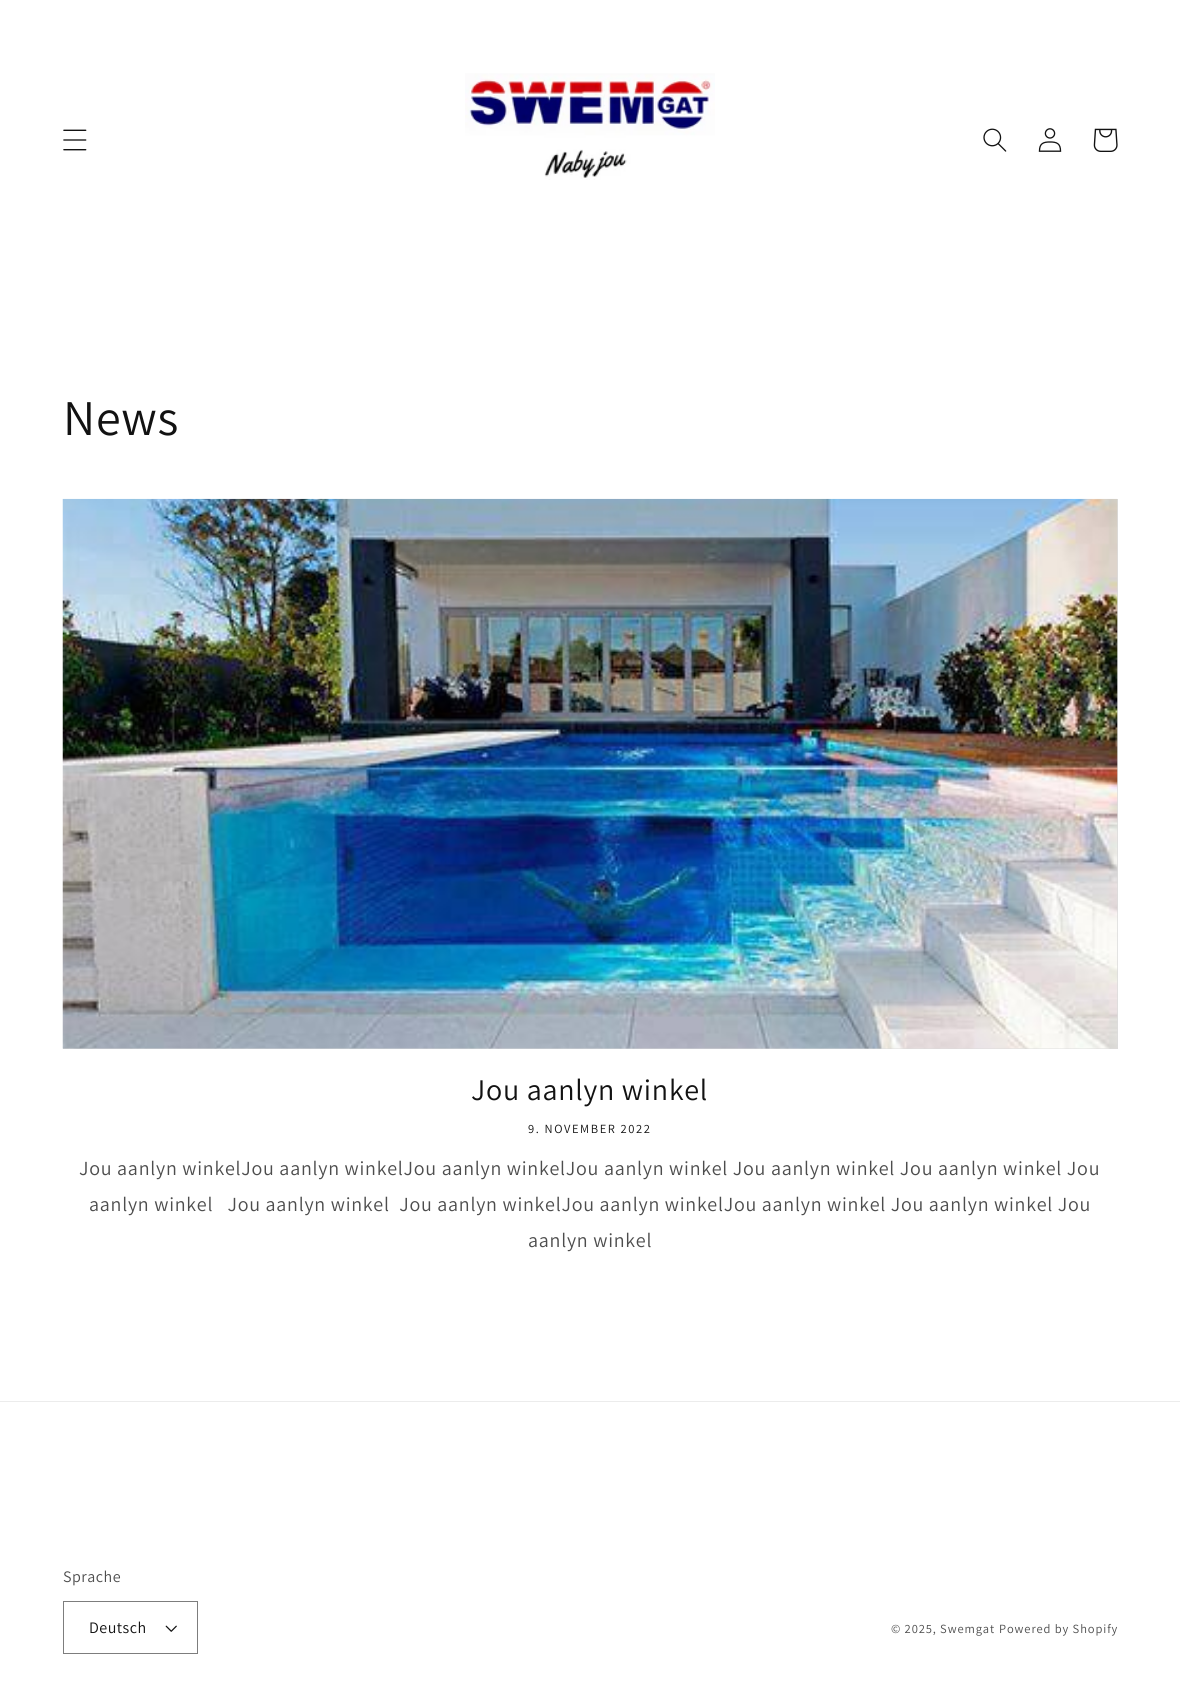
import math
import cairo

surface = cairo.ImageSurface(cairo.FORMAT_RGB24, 1180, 1693)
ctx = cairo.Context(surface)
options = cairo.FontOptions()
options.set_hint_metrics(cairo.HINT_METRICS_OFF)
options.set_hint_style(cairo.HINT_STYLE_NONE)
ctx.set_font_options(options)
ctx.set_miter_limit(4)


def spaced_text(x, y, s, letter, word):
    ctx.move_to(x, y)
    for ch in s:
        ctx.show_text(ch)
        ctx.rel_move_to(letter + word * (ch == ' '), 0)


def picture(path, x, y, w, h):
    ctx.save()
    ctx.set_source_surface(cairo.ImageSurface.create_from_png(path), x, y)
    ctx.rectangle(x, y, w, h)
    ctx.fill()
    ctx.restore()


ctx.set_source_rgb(1, 1, 1)
ctx.paint()
picture("img1.png", 63, 129, 24, 22)
picture("img2.png", 465, 73, 250, 107)
picture("img3.png", 983, 128, 24, 24)
picture("img4.png", 1038, 128, 24, 24)
picture("img5.png", 1093, 128, 25, 24)
ctx.select_font_face("Assistant")
ctx.set_font_size(50)
ctx.set_source_rgb(0.071, 0.071, 0.071)
spaced_text(63, 435, "News", 0.75, 0)
ctx.set_source_rgb(0.859, 0.859, 0.859)
ctx.rectangle(63, 499, 1055, 550)
ctx.fill()
picture("img6.png", 62, 498, 1056, 551)
ctx.set_font_size(30)
ctx.set_source_rgb(0.071, 0.071, 0.071)
spaced_text(471, 1100, "Jou aanlyn winkel", 0.75, 0)
ctx.set_font_size(12.5)
spaced_text(528, 1133, "9. NOVEMBER 2022", 1.6, 0)
ctx.set_font_size(20)
ctx.set_source_rgb(0.302, 0.302, 0.302)
spaced_text(79, 1175, "Jou aanlyn winkelJou aanlyn winkelJou aanlyn winkelJou aanlyn winkel Jou aanlyn winkel Jou aanlyn winkel Jou", 0.75, 0)
spaced_text(89, 1211, "aanlyn winkel   Jou aanlyn winkel  Jou aanlyn winkelJou aanlyn winkelJou aanlyn winkel Jou aanlyn winkel Jou", 0.75, 0)
spaced_text(528, 1247, "aanlyn winkel", 0.75, 0)
ctx.set_source_rgb(0.925, 0.925, 0.925)
ctx.rectangle(0, 1401, 1180, 1)
ctx.fill()
ctx.set_font_size(16)
ctx.set_source_rgb(0.302, 0.302, 0.302)
spaced_text(63, 1582, "Sprache", 0.5, 0)
picture("img7.png", 165, 1625, 12, 7)
ctx.rectangle(63.5, 1601.5, 134, 52)
ctx.set_source_rgb(0.49, 0.49, 0.49)
ctx.set_line_width(1)
ctx.stroke()
ctx.set_source_rgb(0.071, 0.071, 0.071)
spaced_text(89, 1633, "Deutsch", 0.5, 0)
ctx.set_font_size(12.5)
ctx.set_source_rgb(0.302, 0.302, 0.302)
spaced_text(891, 1633, "© 2025, Swemgat", 0.9, 0)
spaced_text(999, 1633, "Powered by Shopify", 0.9, 0)
surface.write_to_png("page.png")
